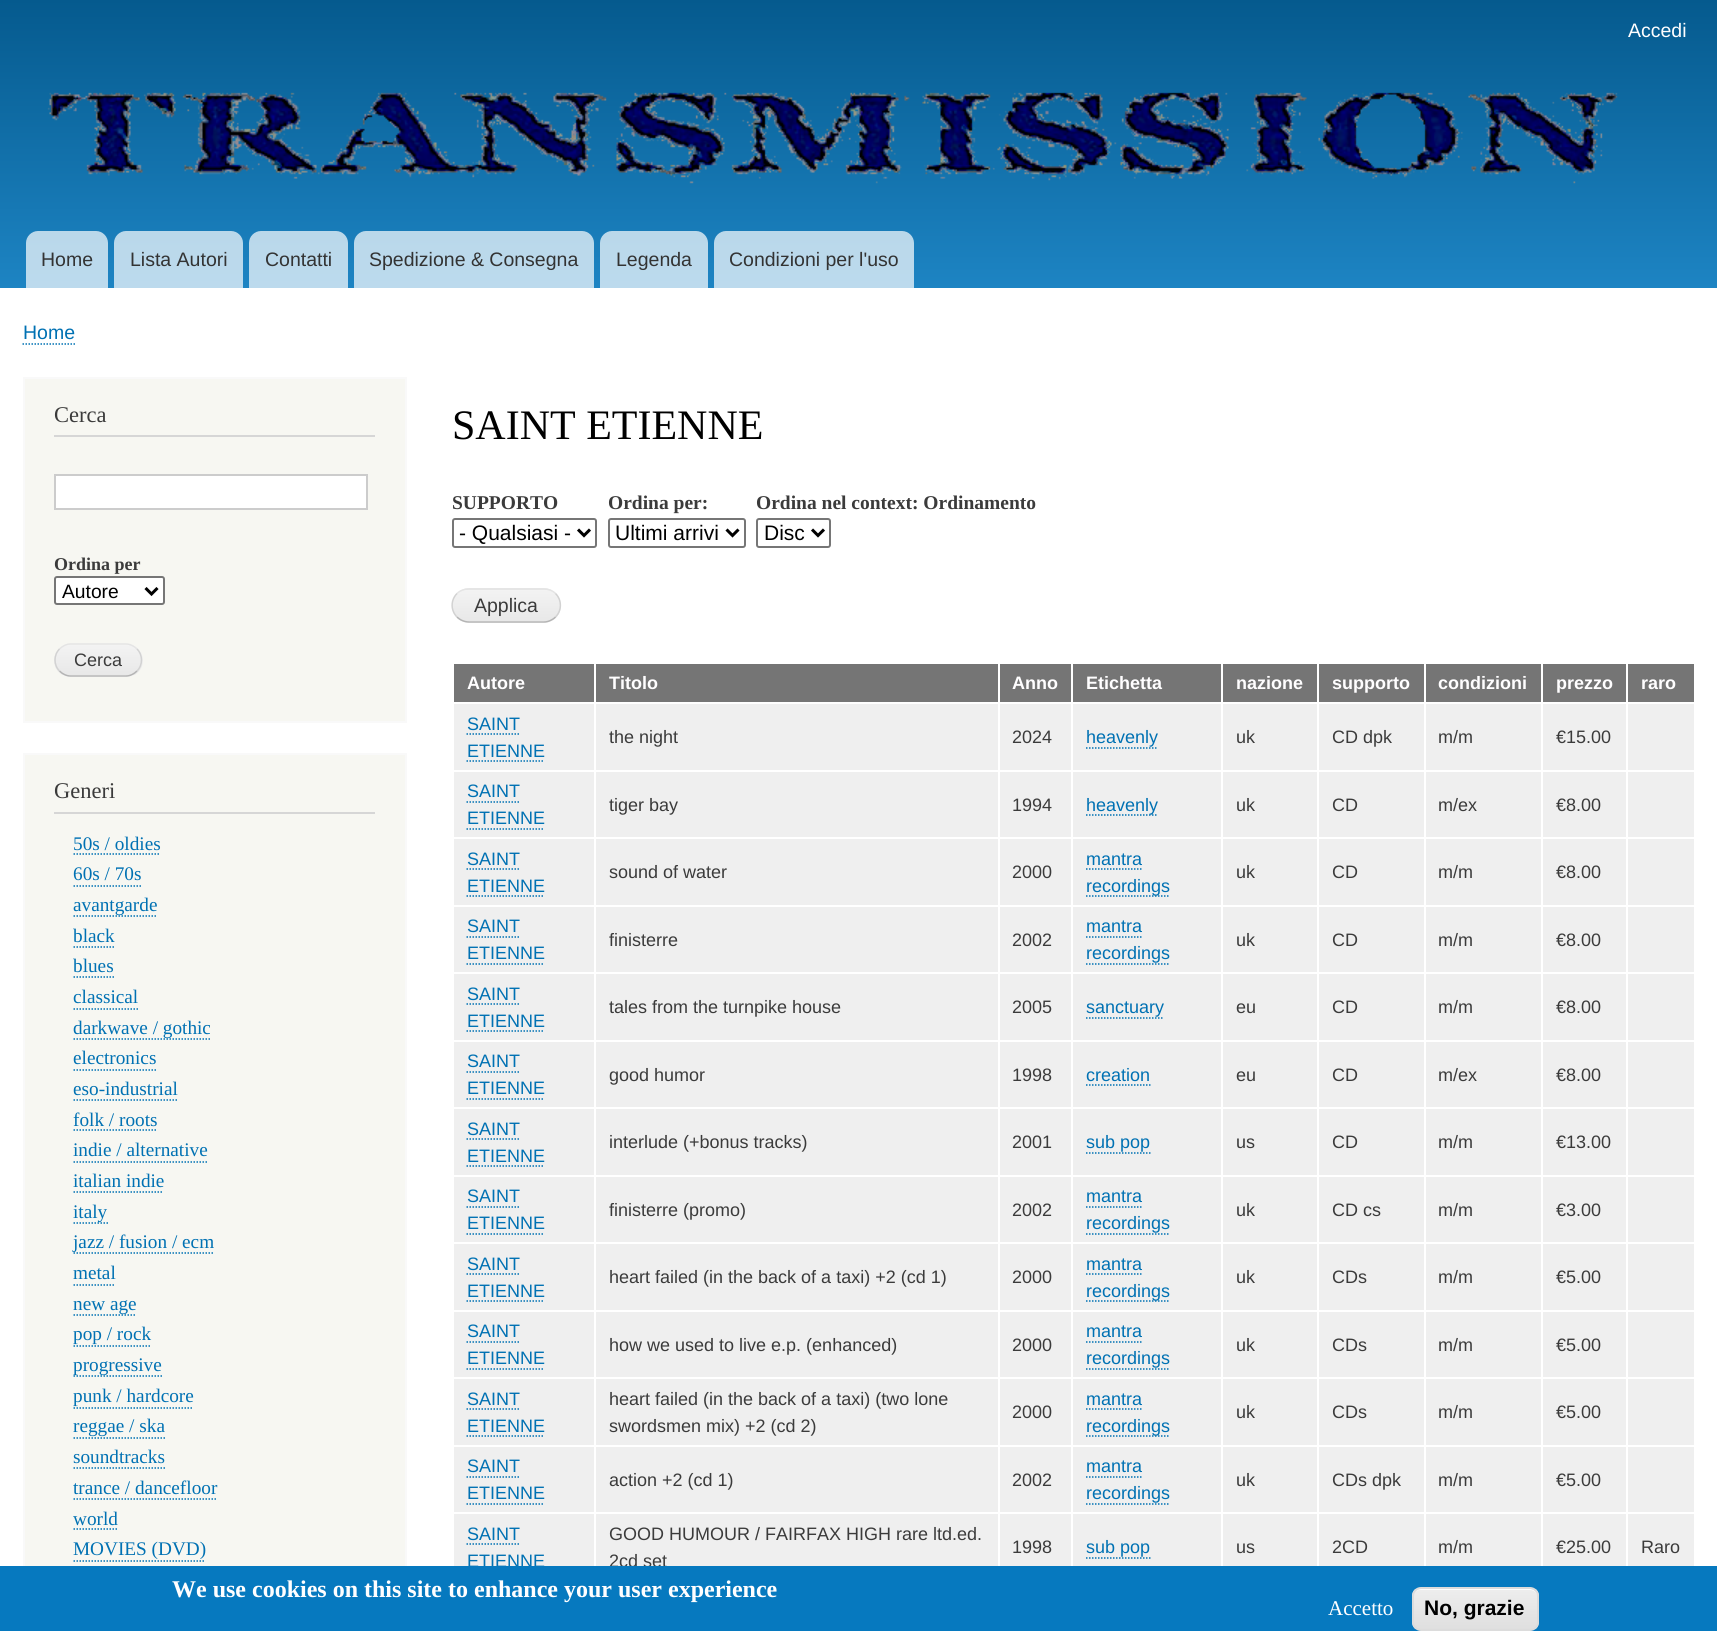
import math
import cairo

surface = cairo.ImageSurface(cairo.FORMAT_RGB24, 1717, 1631)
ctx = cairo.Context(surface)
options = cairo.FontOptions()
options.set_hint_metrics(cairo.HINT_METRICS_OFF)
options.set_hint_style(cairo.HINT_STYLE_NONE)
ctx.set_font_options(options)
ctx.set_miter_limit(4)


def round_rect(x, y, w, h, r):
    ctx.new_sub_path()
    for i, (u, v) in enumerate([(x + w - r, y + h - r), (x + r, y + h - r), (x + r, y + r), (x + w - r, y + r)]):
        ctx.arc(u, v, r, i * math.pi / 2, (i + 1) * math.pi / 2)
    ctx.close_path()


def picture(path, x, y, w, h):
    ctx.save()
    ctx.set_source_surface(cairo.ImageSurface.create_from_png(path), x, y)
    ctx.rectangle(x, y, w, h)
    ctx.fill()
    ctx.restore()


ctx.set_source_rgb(1, 1, 1)
ctx.paint()
gradient = cairo.LinearGradient(859, 0, 859, 288)
gradient.add_color_stop_rgba(0, 0.02, 0.353, 0.557, 1)
gradient.add_color_stop_rgba(1, 0.114, 0.518, 0.765, 1)
ctx.set_source(gradient)
ctx.rectangle(0, 0, 1717, 288)
ctx.fill()
ctx.select_font_face("Liberation Sans")
ctx.set_font_size(19.5)
ctx.set_source_rgb(1, 0.996, 1)
ctx.move_to(1628, 37)
ctx.show_text("Accedi")
picture("img1.png", 47, 92, 1571, 92)
ctx.set_source_rgba(1, 1, 1, 0.7)
ctx.new_path()
ctx.move_to(38, 231)
ctx.line_to(96, 231)
ctx.curve_to(102.5, 231, 108, 236.5, 108, 243)
ctx.line_to(108, 288)
ctx.line_to(26, 288)
ctx.line_to(26, 243)
ctx.curve_to(26, 236.5, 31.5, 231, 38, 231)
ctx.close_path()
ctx.fill()
ctx.set_source_rgb(0.2, 0.2, 0.2)
ctx.move_to(41, 266)
ctx.show_text("Home")
ctx.set_source_rgba(1, 1, 1, 0.7)
ctx.new_path()
ctx.move_to(126, 231)
ctx.line_to(231, 231)
ctx.curve_to(237.5, 231, 243, 236.5, 243, 243)
ctx.line_to(243, 288)
ctx.line_to(114, 288)
ctx.line_to(114, 243)
ctx.curve_to(114, 236.5, 119.5, 231, 126, 231)
ctx.close_path()
ctx.fill()
ctx.set_source_rgb(0.2, 0.2, 0.2)
ctx.move_to(130, 266)
ctx.show_text("Lista Autori")
ctx.set_source_rgba(1, 1, 1, 0.7)
ctx.new_path()
ctx.move_to(261, 231)
ctx.line_to(336, 231)
ctx.curve_to(342.5, 231, 348, 236.5, 348, 243)
ctx.line_to(348, 288)
ctx.line_to(249, 288)
ctx.line_to(249, 243)
ctx.curve_to(249, 236.5, 254.5, 231, 261, 231)
ctx.close_path()
ctx.fill()
ctx.set_source_rgb(0.2, 0.2, 0.2)
ctx.move_to(265, 266)
ctx.show_text("Contatti")
ctx.set_source_rgba(1, 1, 1, 0.7)
ctx.new_path()
ctx.move_to(366, 231)
ctx.line_to(582, 231)
ctx.curve_to(588.5, 231, 594, 236.5, 594, 243)
ctx.line_to(594, 288)
ctx.line_to(354, 288)
ctx.line_to(354, 243)
ctx.curve_to(354, 236.5, 359.5, 231, 366, 231)
ctx.close_path()
ctx.fill()
ctx.set_source_rgb(0.2, 0.2, 0.2)
ctx.move_to(369, 266)
ctx.show_text("Spedizione & Consegna")
ctx.set_source_rgba(1, 1, 1, 0.7)
ctx.new_path()
ctx.move_to(612, 231)
ctx.line_to(696, 231)
ctx.curve_to(702.5, 231, 708, 236.5, 708, 243)
ctx.line_to(708, 288)
ctx.line_to(600, 288)
ctx.line_to(600, 243)
ctx.curve_to(600, 236.5, 605.5, 231, 612, 231)
ctx.close_path()
ctx.fill()
ctx.set_source_rgb(0.2, 0.2, 0.2)
ctx.move_to(616, 266)
ctx.show_text("Legenda")
ctx.set_source_rgba(1, 1, 1, 0.7)
ctx.new_path()
ctx.move_to(726, 231)
ctx.line_to(902, 231)
ctx.curve_to(908.5, 231, 914, 236.5, 914, 243)
ctx.line_to(914, 288)
ctx.line_to(714, 288)
ctx.line_to(714, 243)
ctx.curve_to(714, 236.5, 719.5, 231, 726, 231)
ctx.close_path()
ctx.fill()
ctx.set_source_rgb(0.2, 0.2, 0.2)
ctx.move_to(729, 266)
ctx.show_text("Condizioni per l'uso")
ctx.set_source_rgb(0, 0.443, 0.702)
ctx.move_to(23, 339)
ctx.show_text("Home")
ctx.new_path()
ctx.move_to(22.5, 344)
ctx.line_to(75, 344)
ctx.set_line_width(1.5)
ctx.set_dash([1.5, 1.5])
ctx.stroke()
ctx.set_source_rgb(0.965, 0.965, 0.949)
ctx.rectangle(24, 378, 382, 344)
ctx.fill_preserve()
ctx.set_source_rgb(0.976, 0.976, 0.976)
ctx.set_line_width(2)
ctx.set_dash([])
ctx.stroke()
ctx.set_source_rgb(0.839, 0.839, 0.839)
ctx.rectangle(54, 435, 321, 2)
ctx.fill()
ctx.select_font_face("Liberation Serif")
ctx.set_font_size(22.5)
ctx.set_source_rgb(0.231, 0.231, 0.231)
ctx.move_to(54, 422)
ctx.show_text("Cerca")
ctx.set_source_rgb(1, 1, 1)
ctx.rectangle(55, 475, 312, 34)
ctx.fill_preserve()
ctx.set_source_rgb(0.8, 0.8, 0.8)
ctx.stroke()
ctx.select_font_face("Liberation Serif", cairo.FONT_SLANT_NORMAL, cairo.FONT_WEIGHT_BOLD)
ctx.set_font_size(18)
ctx.set_source_rgb(0.231, 0.231, 0.231)
ctx.move_to(54, 570)
ctx.show_text("Ordina per")
ctx.set_source_rgb(1, 1, 1)
round_rect(55, 577, 109, 27, 2)
ctx.fill_preserve()
ctx.set_source_rgb(0.463, 0.463, 0.463)
ctx.stroke()
ctx.new_path()
ctx.move_to(145.5, 588)
ctx.line_to(151.5, 594)
ctx.line_to(157.5, 588)
ctx.set_source_rgb(0, 0, 0)
ctx.set_line_width(3)
ctx.stroke()
ctx.select_font_face("Liberation Sans")
ctx.set_font_size(19.25)
ctx.move_to(62, 598)
ctx.show_text("Autore")
ctx.save()
round_rect(54, 644, 89, 33, 16.5)
ctx.clip()
gradient = cairo.LinearGradient(98, 645, 98, 675)
gradient.add_color_stop_rgba(0, 0.953, 0.953, 0.953, 1)
gradient.add_color_stop_rgba(1, 0.91, 0.91, 0.91, 1)
ctx.set_source(gradient)
ctx.rectangle(54, 645, 89, 30)
ctx.fill()
gradient = cairo.LinearGradient(98, 675, 98, 705)
gradient.add_color_stop_rgba(0, 0.953, 0.953, 0.953, 1)
gradient.add_color_stop_rgba(1, 0.91, 0.91, 0.91, 1)
ctx.set_source(gradient)
ctx.rectangle(54, 675, 89, 2)
ctx.fill()
ctx.restore()
ctx.new_path()
ctx.move_to(59.5, 649)
ctx.curve_to(62.5, 646, 66.5, 644, 70.5, 644)
ctx.line_to(126, 644)
ctx.curve_to(130, 644, 134, 646, 137, 649)
ctx.set_source_rgb(0.894, 0.894, 0.894)
ctx.set_line_width(1.5)
ctx.stroke()
ctx.new_path()
ctx.move_to(137, 649)
ctx.curve_to(143, 655, 143, 665, 137, 671)
ctx.set_source_rgb(0.824, 0.824, 0.824)
ctx.stroke()
ctx.new_path()
ctx.move_to(137, 671)
ctx.curve_to(134, 674, 130, 676, 126, 676)
ctx.line_to(70.5, 676)
ctx.curve_to(66.5, 676, 62.5, 674, 59.5, 671)
ctx.set_source_rgb(0.706, 0.706, 0.706)
ctx.stroke()
ctx.new_path()
ctx.move_to(59.5, 671)
ctx.curve_to(53.5, 665, 53.5, 655, 59.5, 649)
ctx.set_source_rgb(0.824, 0.824, 0.824)
ctx.stroke()
ctx.set_font_size(18)
ctx.set_source_rgb(0.231, 0.231, 0.231)
ctx.move_to(74, 666)
ctx.show_text("Cerca")
ctx.set_source_rgb(0.965, 0.965, 0.949)
ctx.rectangle(25, 755, 380, 811)
ctx.fill()
ctx.rectangle(24, 754, 382, 868)
ctx.set_source_rgb(0.976, 0.976, 0.976)
ctx.set_line_width(2)
ctx.stroke()
ctx.set_source_rgb(0.839, 0.839, 0.839)
ctx.rectangle(54, 812, 321, 2)
ctx.fill()
ctx.select_font_face("Liberation Serif")
ctx.set_font_size(22.5)
ctx.set_source_rgb(0.231, 0.231, 0.231)
ctx.move_to(54, 798)
ctx.show_text("Generi")
ctx.set_font_size(19.25)
ctx.set_source_rgb(0, 0.443, 0.702)
ctx.move_to(73, 850)
ctx.show_text("50s / oldies")
ctx.new_path()
ctx.move_to(73.5, 854)
ctx.line_to(160.5, 854)
ctx.set_line_width(1.5)
ctx.set_dash([1.5, 1.5])
ctx.stroke()
ctx.move_to(73, 880)
ctx.show_text("60s / 70s")
ctx.new_path()
ctx.move_to(73.5, 886)
ctx.line_to(141, 886)
ctx.stroke()
ctx.new_path()
ctx.move_to(73.5, 916)
ctx.line_to(157.5, 916)
ctx.stroke()
ctx.move_to(73, 911)
ctx.show_text("avantgarde")
ctx.move_to(73, 942)
ctx.show_text("black")
ctx.new_path()
ctx.move_to(73.5, 947)
ctx.line_to(114, 947)
ctx.stroke()
ctx.move_to(73, 972)
ctx.show_text("blues")
ctx.new_path()
ctx.move_to(73.5, 977)
ctx.line_to(114, 977)
ctx.stroke()
ctx.move_to(73, 1003)
ctx.show_text("classical")
ctx.new_path()
ctx.move_to(73.5, 1009)
ctx.line_to(138, 1009)
ctx.stroke()
ctx.new_path()
ctx.move_to(73.5, 1039)
ctx.line_to(210, 1039)
ctx.stroke()
ctx.move_to(73, 1034)
ctx.show_text("darkwave / gothic")
ctx.move_to(73, 1064)
ctx.show_text("electronics")
ctx.new_path()
ctx.move_to(73.5, 1070)
ctx.line_to(156, 1070)
ctx.stroke()
ctx.move_to(73, 1095)
ctx.show_text("eso-industrial")
ctx.new_path()
ctx.move_to(73.5, 1100)
ctx.line_to(177, 1100)
ctx.stroke()
ctx.move_to(73, 1126)
ctx.show_text("folk / roots")
ctx.new_path()
ctx.move_to(73.5, 1130)
ctx.line_to(157.5, 1130)
ctx.stroke()
ctx.move_to(73, 1156)
ctx.show_text("indie / alternative")
ctx.new_path()
ctx.move_to(73.5, 1162)
ctx.line_to(207, 1162)
ctx.stroke()
ctx.move_to(73, 1187)
ctx.show_text("italian indie")
ctx.new_path()
ctx.move_to(73.5, 1192)
ctx.line_to(163.5, 1192)
ctx.stroke()
ctx.new_path()
ctx.move_to(73.5, 1223)
ctx.line_to(108, 1223)
ctx.stroke()
ctx.move_to(73, 1218)
ctx.show_text("italy")
ctx.new_path()
ctx.move_to(73.5, 1253)
ctx.line_to(213, 1253)
ctx.stroke()
ctx.move_to(73, 1248)
ctx.show_text("jazz / fusion / ecm")
ctx.move_to(73, 1279)
ctx.show_text("metal")
ctx.new_path()
ctx.move_to(73.5, 1285)
ctx.line_to(115.5, 1285)
ctx.stroke()
ctx.new_path()
ctx.move_to(73.5, 1315)
ctx.line_to(136.5, 1315)
ctx.stroke()
ctx.move_to(73, 1310)
ctx.show_text("new age")
ctx.move_to(73, 1340)
ctx.show_text("pop / rock")
ctx.new_path()
ctx.move_to(73.5, 1346)
ctx.line_to(151.5, 1346)
ctx.stroke()
ctx.new_path()
ctx.move_to(73.5, 1376)
ctx.line_to(162, 1376)
ctx.stroke()
ctx.move_to(73, 1371)
ctx.show_text("progressive")
ctx.move_to(73, 1402)
ctx.show_text("punk / hardcore")
ctx.new_path()
ctx.move_to(73.5, 1408)
ctx.line_to(193.5, 1408)
ctx.stroke()
ctx.move_to(73, 1432)
ctx.show_text("reggae / ska")
ctx.new_path()
ctx.move_to(73.5, 1438)
ctx.line_to(165, 1438)
ctx.stroke()
ctx.move_to(73, 1463)
ctx.show_text("soundtracks")
ctx.new_path()
ctx.move_to(73.5, 1468)
ctx.line_to(165, 1468)
ctx.stroke()
ctx.move_to(73, 1494)
ctx.show_text("trance / dancefloor")
ctx.new_path()
ctx.move_to(73.5, 1499)
ctx.line_to(217.5, 1499)
ctx.stroke()
ctx.move_to(73, 1525)
ctx.show_text("world")
ctx.new_path()
ctx.move_to(73.5, 1529)
ctx.line_to(118.5, 1529)
ctx.stroke()
ctx.move_to(73, 1555)
ctx.show_text("MOVIES (DVD)")
ctx.new_path()
ctx.move_to(73.5, 1561)
ctx.line_to(205.5, 1561)
ctx.stroke()
ctx.set_font_size(42)
ctx.set_source_rgb(0, 0, 0)
ctx.move_to(452, 439)
ctx.show_text("SAINT ETIENNE")
ctx.select_font_face("Liberation Serif", cairo.FONT_SLANT_NORMAL, cairo.FONT_WEIGHT_BOLD)
ctx.set_font_size(19.5)
ctx.set_source_rgb(0.231, 0.231, 0.231)
ctx.move_to(452, 509)
ctx.show_text("SUPPORTO")
round_rect(453, 519, 143, 28, 2)
ctx.set_source_rgb(0.463, 0.463, 0.463)
ctx.set_line_width(2)
ctx.set_dash([])
ctx.stroke()
ctx.new_path()
ctx.move_to(578, 529.5)
ctx.line_to(584, 535.5)
ctx.line_to(590, 529.5)
ctx.set_source_rgb(0, 0, 0)
ctx.set_line_width(3)
ctx.stroke()
ctx.select_font_face("Liberation Sans")
ctx.set_font_size(21)
ctx.move_to(459, 540)
ctx.show_text("- Qualsiasi -")
ctx.select_font_face("Liberation Serif", cairo.FONT_SLANT_NORMAL, cairo.FONT_WEIGHT_BOLD)
ctx.set_font_size(19.5)
ctx.set_source_rgb(0.231, 0.231, 0.231)
ctx.move_to(608, 509)
ctx.show_text("Ordina per:")
round_rect(609, 519, 136, 28, 2)
ctx.set_source_rgb(0.463, 0.463, 0.463)
ctx.set_line_width(2)
ctx.stroke()
ctx.new_path()
ctx.move_to(726.5, 529.5)
ctx.line_to(732.5, 535.5)
ctx.line_to(738.5, 529.5)
ctx.set_source_rgb(0, 0, 0)
ctx.set_line_width(3)
ctx.stroke()
ctx.select_font_face("Liberation Sans")
ctx.set_font_size(21)
ctx.move_to(615, 540)
ctx.show_text("Ultimi arrivi")
ctx.select_font_face("Liberation Serif", cairo.FONT_SLANT_NORMAL, cairo.FONT_WEIGHT_BOLD)
ctx.set_font_size(19.5)
ctx.set_source_rgb(0.231, 0.231, 0.231)
ctx.move_to(756, 509)
ctx.show_text("Ordina nel context: Ordinamento")
round_rect(757, 519, 73, 28, 2)
ctx.set_source_rgb(0.463, 0.463, 0.463)
ctx.set_line_width(2)
ctx.stroke()
ctx.new_path()
ctx.move_to(812, 529.5)
ctx.line_to(818, 535.5)
ctx.line_to(824, 529.5)
ctx.set_source_rgb(0, 0, 0)
ctx.set_line_width(3)
ctx.stroke()
ctx.select_font_face("Liberation Sans")
ctx.set_font_size(21)
ctx.move_to(764, 540)
ctx.show_text("Disc")
ctx.save()
round_rect(452, 588, 109, 35, 17.5)
ctx.clip()
gradient = cairo.LinearGradient(506, 558, 506, 590)
gradient.add_color_stop_rgba(0, 0.953, 0.953, 0.953, 1)
gradient.add_color_stop_rgba(1, 0.91, 0.91, 0.91, 1)
ctx.set_source(gradient)
ctx.rectangle(461, 588, 91, 2)
ctx.fill()
gradient = cairo.LinearGradient(506, 590, 506, 621)
gradient.add_color_stop_rgba(0, 0.953, 0.953, 0.953, 1)
gradient.add_color_stop_rgba(1, 0.91, 0.91, 0.91, 1)
ctx.set_source(gradient)
ctx.rectangle(452, 590, 109, 31)
ctx.fill()
gradient = cairo.LinearGradient(506, 621, 506, 653)
gradient.add_color_stop_rgba(0, 0.953, 0.953, 0.953, 1)
gradient.add_color_stop_rgba(1, 0.91, 0.91, 0.91, 1)
ctx.set_source(gradient)
ctx.rectangle(461, 621, 91, 2)
ctx.fill()
ctx.restore()
ctx.new_path()
ctx.move_to(457, 593.5)
ctx.curve_to(460, 590.5, 464.5, 589, 469, 589)
ctx.line_to(544, 589)
ctx.curve_to(548, 589, 552.5, 590.5, 555.5, 593.5)
ctx.set_source_rgb(0.894, 0.894, 0.894)
ctx.set_line_width(1.5)
ctx.stroke()
ctx.new_path()
ctx.move_to(555.5, 593.5)
ctx.curve_to(562, 600, 562, 610.5, 555.5, 617)
ctx.set_source_rgb(0.824, 0.824, 0.824)
ctx.stroke()
ctx.new_path()
ctx.move_to(555.5, 617)
ctx.curve_to(552.5, 620, 548, 622, 544, 622)
ctx.line_to(469, 622)
ctx.curve_to(464.5, 622, 460, 620, 457, 617)
ctx.set_source_rgb(0.706, 0.706, 0.706)
ctx.stroke()
ctx.new_path()
ctx.move_to(457, 617)
ctx.curve_to(450.5, 610.5, 450.5, 600, 457, 593.5)
ctx.set_source_rgb(0.824, 0.824, 0.824)
ctx.stroke()
ctx.set_font_size(19.5)
ctx.set_source_rgb(0.231, 0.231, 0.231)
ctx.move_to(474, 612)
ctx.show_text("Applica")
ctx.set_source_rgb(0.459, 0.459, 0.459)
ctx.rectangle(454, 664, 140, 38)
ctx.fill()
ctx.select_font_face("Liberation Sans", cairo.FONT_SLANT_NORMAL, cairo.FONT_WEIGHT_BOLD)
ctx.set_font_size(18)
ctx.set_source_rgb(1, 0.996, 1)
ctx.move_to(467, 689)
ctx.show_text("Autore")
ctx.set_source_rgb(0.459, 0.459, 0.459)
ctx.rectangle(596, 664, 402, 38)
ctx.fill()
ctx.set_source_rgb(1, 0.996, 1)
ctx.move_to(609, 689)
ctx.show_text("Titolo")
ctx.set_source_rgb(0.459, 0.459, 0.459)
ctx.rectangle(1000, 664, 71, 38)
ctx.fill()
ctx.set_source_rgb(1, 0.996, 1)
ctx.move_to(1012, 689)
ctx.show_text("Anno")
ctx.set_source_rgb(0.459, 0.459, 0.459)
ctx.rectangle(1073, 664, 148, 38)
ctx.fill()
ctx.set_source_rgb(1, 0.996, 1)
ctx.move_to(1086, 689)
ctx.show_text("Etichetta")
ctx.set_source_rgb(0.459, 0.459, 0.459)
ctx.rectangle(1223, 664, 94, 38)
ctx.fill()
ctx.set_source_rgb(1, 0.996, 1)
ctx.move_to(1236, 689)
ctx.show_text("nazione")
ctx.set_source_rgb(0.459, 0.459, 0.459)
ctx.rectangle(1319, 664, 105, 38)
ctx.fill()
ctx.set_source_rgb(1, 0.996, 1)
ctx.move_to(1332, 689)
ctx.show_text("supporto")
ctx.set_source_rgb(0.459, 0.459, 0.459)
ctx.rectangle(1426, 664, 115, 38)
ctx.fill()
ctx.set_source_rgb(1, 0.996, 1)
ctx.move_to(1438, 689)
ctx.show_text("condizioni")
ctx.set_source_rgb(0.459, 0.459, 0.459)
ctx.rectangle(1543, 664, 83, 38)
ctx.fill()
ctx.set_source_rgb(1, 0.996, 1)
ctx.move_to(1556, 689)
ctx.show_text("prezzo")
ctx.set_source_rgb(0.459, 0.459, 0.459)
ctx.rectangle(1628, 664, 66, 38)
ctx.fill()
ctx.set_source_rgb(1, 0.996, 1)
ctx.move_to(1641, 689)
ctx.show_text("raro")
ctx.set_source_rgb(0.937, 0.937, 0.937)
ctx.rectangle(454, 704, 1240, 66)
ctx.fill()
ctx.select_font_face("Liberation Sans")
ctx.set_source_rgb(0, 0.443, 0.702)
ctx.move_to(467, 730)
ctx.show_text("SAINT")
ctx.new_path()
ctx.move_to(466.5, 734)
ctx.line_to(520.5, 734)
ctx.set_dash([1.5, 1.5])
ctx.stroke()
ctx.move_to(467, 757)
ctx.show_text("ETIENNE")
ctx.new_path()
ctx.move_to(466.5, 761)
ctx.line_to(544.5, 761)
ctx.stroke()
ctx.set_source_rgb(0.231, 0.231, 0.231)
ctx.move_to(609, 743)
ctx.show_text("the night")
ctx.move_to(1012, 743)
ctx.show_text("2024")
ctx.set_source_rgb(0, 0.443, 0.702)
ctx.move_to(1086, 743)
ctx.show_text("heavenly")
ctx.new_path()
ctx.move_to(1086, 748)
ctx.line_to(1158, 748)
ctx.stroke()
ctx.set_source_rgb(0.231, 0.231, 0.231)
ctx.move_to(1236, 743)
ctx.show_text("uk")
ctx.move_to(1332, 743)
ctx.show_text("CD dpk")
ctx.move_to(1438, 743)
ctx.show_text("m/m")
ctx.move_to(1556, 743)
ctx.show_text("€15.00")
ctx.set_source_rgb(0.937, 0.937, 0.937)
ctx.rectangle(454, 772, 1240, 65)
ctx.fill()
ctx.set_source_rgb(0, 0.443, 0.702)
ctx.move_to(467, 797)
ctx.show_text("SAINT")
ctx.new_path()
ctx.move_to(466.5, 802)
ctx.line_to(520.5, 802)
ctx.stroke()
ctx.move_to(467, 824)
ctx.show_text("ETIENNE")
ctx.new_path()
ctx.move_to(466.5, 829)
ctx.line_to(544.5, 829)
ctx.stroke()
ctx.set_source_rgb(0.231, 0.231, 0.231)
ctx.move_to(609, 811)
ctx.show_text("tiger bay")
ctx.move_to(1012, 811)
ctx.show_text("1994")
ctx.new_path()
ctx.move_to(1086, 815)
ctx.line_to(1158, 815)
ctx.set_source_rgb(0, 0.443, 0.702)
ctx.stroke()
ctx.move_to(1086, 811)
ctx.show_text("heavenly")
ctx.set_source_rgb(0.231, 0.231, 0.231)
ctx.move_to(1236, 811)
ctx.show_text("uk")
ctx.move_to(1332, 811)
ctx.show_text("CD")
ctx.move_to(1438, 811)
ctx.show_text("m/ex")
ctx.move_to(1556, 811)
ctx.show_text("€8.00")
ctx.set_source_rgb(0.937, 0.937, 0.937)
ctx.rectangle(454, 839, 1240, 66)
ctx.fill()
ctx.set_source_rgb(0, 0.443, 0.702)
ctx.move_to(467, 865)
ctx.show_text("SAINT")
ctx.new_path()
ctx.move_to(466.5, 869)
ctx.line_to(520.5, 869)
ctx.stroke()
ctx.move_to(467, 892)
ctx.show_text("ETIENNE")
ctx.new_path()
ctx.move_to(466.5, 896)
ctx.line_to(544.5, 896)
ctx.stroke()
ctx.set_source_rgb(0.231, 0.231, 0.231)
ctx.move_to(609, 878)
ctx.show_text("sound of water")
ctx.move_to(1012, 878)
ctx.show_text("2000")
ctx.set_source_rgb(0, 0.443, 0.702)
ctx.move_to(1086, 865)
ctx.show_text("mantra")
ctx.new_path()
ctx.move_to(1086, 869)
ctx.line_to(1143, 869)
ctx.stroke()
ctx.new_path()
ctx.move_to(1086, 896)
ctx.line_to(1170, 896)
ctx.stroke()
ctx.move_to(1086, 892)
ctx.show_text("recordings")
ctx.set_source_rgb(0.231, 0.231, 0.231)
ctx.move_to(1236, 878)
ctx.show_text("uk")
ctx.move_to(1332, 878)
ctx.show_text("CD")
ctx.move_to(1438, 878)
ctx.show_text("m/m")
ctx.move_to(1556, 878)
ctx.show_text("€8.00")
ctx.set_source_rgb(0.937, 0.937, 0.937)
ctx.rectangle(454, 907, 1240, 65)
ctx.fill()
ctx.set_source_rgb(0, 0.443, 0.702)
ctx.move_to(467, 932)
ctx.show_text("SAINT")
ctx.new_path()
ctx.move_to(466.5, 937)
ctx.line_to(520.5, 937)
ctx.stroke()
ctx.move_to(467, 959)
ctx.show_text("ETIENNE")
ctx.new_path()
ctx.move_to(466.5, 964)
ctx.line_to(544.5, 964)
ctx.stroke()
ctx.set_source_rgb(0.231, 0.231, 0.231)
ctx.move_to(609, 946)
ctx.show_text("finisterre")
ctx.move_to(1012, 946)
ctx.show_text("2002")
ctx.set_source_rgb(0, 0.443, 0.702)
ctx.move_to(1086, 932)
ctx.show_text("mantra")
ctx.new_path()
ctx.move_to(1086, 937)
ctx.line_to(1143, 937)
ctx.stroke()
ctx.move_to(1086, 959)
ctx.show_text("recordings")
ctx.new_path()
ctx.move_to(1086, 964)
ctx.line_to(1170, 964)
ctx.stroke()
ctx.set_source_rgb(0.231, 0.231, 0.231)
ctx.move_to(1236, 946)
ctx.show_text("uk")
ctx.move_to(1332, 946)
ctx.show_text("CD")
ctx.move_to(1438, 946)
ctx.show_text("m/m")
ctx.move_to(1556, 946)
ctx.show_text("€8.00")
ctx.set_source_rgb(0.937, 0.937, 0.937)
ctx.rectangle(454, 974, 1240, 66)
ctx.fill()
ctx.set_source_rgb(0, 0.443, 0.702)
ctx.move_to(467, 1000)
ctx.show_text("SAINT")
ctx.new_path()
ctx.move_to(466.5, 1004)
ctx.line_to(520.5, 1004)
ctx.stroke()
ctx.move_to(467, 1027)
ctx.show_text("ETIENNE")
ctx.new_path()
ctx.move_to(466.5, 1031)
ctx.line_to(544.5, 1031)
ctx.stroke()
ctx.set_source_rgb(0.231, 0.231, 0.231)
ctx.move_to(609, 1013)
ctx.show_text("tales from the turnpike house")
ctx.move_to(1012, 1013)
ctx.show_text("2005")
ctx.set_source_rgb(0, 0.443, 0.702)
ctx.move_to(1086, 1013)
ctx.show_text("sanctuary")
ctx.new_path()
ctx.move_to(1086, 1018)
ctx.line_to(1164, 1018)
ctx.stroke()
ctx.set_source_rgb(0.231, 0.231, 0.231)
ctx.move_to(1236, 1013)
ctx.show_text("eu")
ctx.move_to(1332, 1013)
ctx.show_text("CD")
ctx.move_to(1438, 1013)
ctx.show_text("m/m")
ctx.move_to(1556, 1013)
ctx.show_text("€8.00")
ctx.set_source_rgb(0.937, 0.937, 0.937)
ctx.rectangle(454, 1042, 1240, 65)
ctx.fill()
ctx.set_source_rgb(0, 0.443, 0.702)
ctx.move_to(467, 1067)
ctx.show_text("SAINT")
ctx.new_path()
ctx.move_to(466.5, 1072)
ctx.line_to(520.5, 1072)
ctx.stroke()
ctx.move_to(467, 1094)
ctx.show_text("ETIENNE")
ctx.new_path()
ctx.move_to(466.5, 1099)
ctx.line_to(544.5, 1099)
ctx.stroke()
ctx.set_source_rgb(0.231, 0.231, 0.231)
ctx.move_to(609, 1081)
ctx.show_text("good humor")
ctx.move_to(1012, 1081)
ctx.show_text("1998")
ctx.set_source_rgb(0, 0.443, 0.702)
ctx.move_to(1086, 1081)
ctx.show_text("creation")
ctx.new_path()
ctx.move_to(1086, 1085)
ctx.line_to(1150.5, 1085)
ctx.stroke()
ctx.set_source_rgb(0.231, 0.231, 0.231)
ctx.move_to(1236, 1081)
ctx.show_text("eu")
ctx.move_to(1332, 1081)
ctx.show_text("CD")
ctx.move_to(1438, 1081)
ctx.show_text("m/ex")
ctx.move_to(1556, 1081)
ctx.show_text("€8.00")
ctx.set_source_rgb(0.937, 0.937, 0.937)
ctx.rectangle(454, 1109, 1240, 66)
ctx.fill()
ctx.set_source_rgb(0, 0.443, 0.702)
ctx.move_to(467, 1135)
ctx.show_text("SAINT")
ctx.new_path()
ctx.move_to(466.5, 1139)
ctx.line_to(520.5, 1139)
ctx.stroke()
ctx.move_to(467, 1162)
ctx.show_text("ETIENNE")
ctx.new_path()
ctx.move_to(466.5, 1166)
ctx.line_to(544.5, 1166)
ctx.stroke()
ctx.set_source_rgb(0.231, 0.231, 0.231)
ctx.move_to(609, 1148)
ctx.show_text("interlude (+bonus tracks)")
ctx.move_to(1012, 1148)
ctx.show_text("2001")
ctx.set_source_rgb(0, 0.443, 0.702)
ctx.move_to(1086, 1148)
ctx.show_text("sub pop")
ctx.new_path()
ctx.move_to(1086, 1153)
ctx.line_to(1150.5, 1153)
ctx.stroke()
ctx.set_source_rgb(0.231, 0.231, 0.231)
ctx.move_to(1236, 1148)
ctx.show_text("us")
ctx.move_to(1332, 1148)
ctx.show_text("CD")
ctx.move_to(1438, 1148)
ctx.show_text("m/m")
ctx.move_to(1556, 1148)
ctx.show_text("€13.00")
ctx.set_source_rgb(0.937, 0.937, 0.937)
ctx.rectangle(454, 1177, 1240, 65)
ctx.fill()
ctx.set_source_rgb(0, 0.443, 0.702)
ctx.move_to(467, 1202)
ctx.show_text("SAINT")
ctx.new_path()
ctx.move_to(466.5, 1207)
ctx.line_to(520.5, 1207)
ctx.stroke()
ctx.move_to(467, 1229)
ctx.show_text("ETIENNE")
ctx.new_path()
ctx.move_to(466.5, 1234)
ctx.line_to(544.5, 1234)
ctx.stroke()
ctx.set_source_rgb(0.231, 0.231, 0.231)
ctx.move_to(609, 1216)
ctx.show_text("finisterre (promo)")
ctx.move_to(1012, 1216)
ctx.show_text("2002")
ctx.set_source_rgb(0, 0.443, 0.702)
ctx.move_to(1086, 1202)
ctx.show_text("mantra")
ctx.new_path()
ctx.move_to(1086, 1207)
ctx.line_to(1143, 1207)
ctx.stroke()
ctx.move_to(1086, 1229)
ctx.show_text("recordings")
ctx.new_path()
ctx.move_to(1086, 1234)
ctx.line_to(1170, 1234)
ctx.stroke()
ctx.set_source_rgb(0.231, 0.231, 0.231)
ctx.move_to(1236, 1216)
ctx.show_text("uk")
ctx.move_to(1332, 1216)
ctx.show_text("CD cs")
ctx.move_to(1438, 1216)
ctx.show_text("m/m")
ctx.move_to(1556, 1216)
ctx.show_text("€3.00")
ctx.set_source_rgb(0.937, 0.937, 0.937)
ctx.rectangle(454, 1244, 1240, 66)
ctx.fill()
ctx.set_source_rgb(0, 0.443, 0.702)
ctx.move_to(467, 1270)
ctx.show_text("SAINT")
ctx.new_path()
ctx.move_to(466.5, 1274)
ctx.line_to(520.5, 1274)
ctx.stroke()
ctx.move_to(467, 1297)
ctx.show_text("ETIENNE")
ctx.new_path()
ctx.move_to(466.5, 1301)
ctx.line_to(544.5, 1301)
ctx.stroke()
ctx.set_source_rgb(0.231, 0.231, 0.231)
ctx.move_to(609, 1283)
ctx.show_text("heart failed (in the back of a taxi) +2 (cd 1)")
ctx.move_to(1012, 1283)
ctx.show_text("2000")
ctx.set_source_rgb(0, 0.443, 0.702)
ctx.move_to(1086, 1270)
ctx.show_text("mantra")
ctx.new_path()
ctx.move_to(1086, 1274)
ctx.line_to(1143, 1274)
ctx.stroke()
ctx.new_path()
ctx.move_to(1086, 1301)
ctx.line_to(1170, 1301)
ctx.stroke()
ctx.move_to(1086, 1297)
ctx.show_text("recordings")
ctx.set_source_rgb(0.231, 0.231, 0.231)
ctx.move_to(1236, 1283)
ctx.show_text("uk")
ctx.move_to(1332, 1283)
ctx.show_text("CDs")
ctx.move_to(1438, 1283)
ctx.show_text("m/m")
ctx.move_to(1556, 1283)
ctx.show_text("€5.00")
ctx.set_source_rgb(0.937, 0.937, 0.937)
ctx.rectangle(454, 1312, 1240, 65)
ctx.fill()
ctx.set_source_rgb(0, 0.443, 0.702)
ctx.move_to(467, 1337)
ctx.show_text("SAINT")
ctx.new_path()
ctx.move_to(466.5, 1342)
ctx.line_to(520.5, 1342)
ctx.stroke()
ctx.move_to(467, 1364)
ctx.show_text("ETIENNE")
ctx.new_path()
ctx.move_to(466.5, 1369)
ctx.line_to(544.5, 1369)
ctx.stroke()
ctx.set_source_rgb(0.231, 0.231, 0.231)
ctx.move_to(609, 1351)
ctx.show_text("how we used to live e.p. (enhanced)")
ctx.move_to(1012, 1351)
ctx.show_text("2000")
ctx.set_source_rgb(0, 0.443, 0.702)
ctx.move_to(1086, 1337)
ctx.show_text("mantra")
ctx.new_path()
ctx.move_to(1086, 1342)
ctx.line_to(1143, 1342)
ctx.stroke()
ctx.move_to(1086, 1364)
ctx.show_text("recordings")
ctx.new_path()
ctx.move_to(1086, 1369)
ctx.line_to(1170, 1369)
ctx.stroke()
ctx.set_source_rgb(0.231, 0.231, 0.231)
ctx.move_to(1236, 1351)
ctx.show_text("uk")
ctx.move_to(1332, 1351)
ctx.show_text("CDs")
ctx.move_to(1438, 1351)
ctx.show_text("m/m")
ctx.move_to(1556, 1351)
ctx.show_text("€5.00")
ctx.set_source_rgb(0.937, 0.937, 0.937)
ctx.rectangle(454, 1379, 1240, 66)
ctx.fill()
ctx.set_source_rgb(0, 0.443, 0.702)
ctx.move_to(467, 1405)
ctx.show_text("SAINT")
ctx.new_path()
ctx.move_to(466.5, 1409)
ctx.line_to(520.5, 1409)
ctx.stroke()
ctx.move_to(467, 1432)
ctx.show_text("ETIENNE")
ctx.new_path()
ctx.move_to(466.5, 1436)
ctx.line_to(544.5, 1436)
ctx.stroke()
ctx.set_source_rgb(0.231, 0.231, 0.231)
ctx.move_to(609, 1405)
ctx.show_text("heart failed (in the back of a taxi) (two lone")
ctx.move_to(609, 1432)
ctx.show_text("swordsmen mix) +2 (cd 2)")
ctx.move_to(1012, 1418)
ctx.show_text("2000")
ctx.set_source_rgb(0, 0.443, 0.702)
ctx.move_to(1086, 1405)
ctx.show_text("mantra")
ctx.new_path()
ctx.move_to(1086, 1409)
ctx.line_to(1143, 1409)
ctx.stroke()
ctx.new_path()
ctx.move_to(1086, 1436)
ctx.line_to(1170, 1436)
ctx.stroke()
ctx.move_to(1086, 1432)
ctx.show_text("recordings")
ctx.set_source_rgb(0.231, 0.231, 0.231)
ctx.move_to(1236, 1418)
ctx.show_text("uk")
ctx.move_to(1332, 1418)
ctx.show_text("CDs")
ctx.move_to(1438, 1418)
ctx.show_text("m/m")
ctx.move_to(1556, 1418)
ctx.show_text("€5.00")
ctx.set_source_rgb(0.937, 0.937, 0.937)
ctx.rectangle(454, 1447, 1240, 65)
ctx.fill()
ctx.set_source_rgb(0, 0.443, 0.702)
ctx.move_to(467, 1472)
ctx.show_text("SAINT")
ctx.new_path()
ctx.move_to(466.5, 1477)
ctx.line_to(520.5, 1477)
ctx.stroke()
ctx.move_to(467, 1499)
ctx.show_text("ETIENNE")
ctx.new_path()
ctx.move_to(466.5, 1504)
ctx.line_to(544.5, 1504)
ctx.stroke()
ctx.set_source_rgb(0.231, 0.231, 0.231)
ctx.move_to(609, 1486)
ctx.show_text("action +2 (cd 1)")
ctx.move_to(1012, 1486)
ctx.show_text("2002")
ctx.set_source_rgb(0, 0.443, 0.702)
ctx.move_to(1086, 1472)
ctx.show_text("mantra")
ctx.new_path()
ctx.move_to(1086, 1477)
ctx.line_to(1143, 1477)
ctx.stroke()
ctx.move_to(1086, 1499)
ctx.show_text("recordings")
ctx.new_path()
ctx.move_to(1086, 1504)
ctx.line_to(1170, 1504)
ctx.stroke()
ctx.set_source_rgb(0.231, 0.231, 0.231)
ctx.move_to(1236, 1486)
ctx.show_text("uk")
ctx.move_to(1332, 1486)
ctx.show_text("CDs dpk")
ctx.move_to(1438, 1486)
ctx.show_text("m/m")
ctx.move_to(1556, 1486)
ctx.show_text("€5.00")
ctx.set_source_rgb(0.937, 0.937, 0.937)
ctx.rectangle(454, 1514, 1240, 52)
ctx.fill()
ctx.set_source_rgb(0, 0.443, 0.702)
ctx.move_to(467, 1540)
ctx.show_text("SAINT")
ctx.new_path()
ctx.move_to(466.5, 1544)
ctx.line_to(520.5, 1544)
ctx.stroke()
ctx.move_to(467, 1567)
ctx.show_text("ETIENNE")
ctx.set_source_rgb(1, 1, 1)
ctx.rectangle(594, 702, 2, 864)
ctx.fill()
ctx.set_source_rgb(0.231, 0.231, 0.231)
ctx.move_to(609, 1540)
ctx.show_text("GOOD HUMOUR / FAIRFAX HIGH")
ctx.move_to(896, 1540)
ctx.show_text("rare ltd.ed.")
ctx.move_to(609, 1567)
ctx.show_text("2cd set")
ctx.set_source_rgb(1, 1, 1)
ctx.rectangle(998, 702, 2, 864)
ctx.fill()
ctx.set_source_rgb(0.231, 0.231, 0.231)
ctx.move_to(1012, 1553)
ctx.show_text("1998")
ctx.set_source_rgb(1, 1, 1)
ctx.rectangle(1071, 702, 2, 864)
ctx.fill()
ctx.set_source_rgb(0, 0.443, 0.702)
ctx.move_to(1086, 1553)
ctx.show_text("sub pop")
ctx.new_path()
ctx.move_to(1086, 1558)
ctx.line_to(1150.5, 1558)
ctx.stroke()
ctx.set_source_rgb(1, 1, 1)
ctx.rectangle(1221, 702, 2, 864)
ctx.fill()
ctx.set_source_rgb(0.231, 0.231, 0.231)
ctx.move_to(1236, 1553)
ctx.show_text("us")
ctx.set_source_rgb(1, 1, 1)
ctx.rectangle(1317, 702, 2, 864)
ctx.fill()
ctx.set_source_rgb(0.231, 0.231, 0.231)
ctx.move_to(1332, 1553)
ctx.show_text("2CD")
ctx.set_source_rgb(1, 1, 1)
ctx.rectangle(1424, 702, 2, 864)
ctx.fill()
ctx.set_source_rgb(0.231, 0.231, 0.231)
ctx.move_to(1438, 1553)
ctx.show_text("m/m")
ctx.set_source_rgb(1, 1, 1)
ctx.rectangle(1541, 702, 2, 864)
ctx.fill()
ctx.set_source_rgb(0.231, 0.231, 0.231)
ctx.move_to(1556, 1553)
ctx.show_text("€25.00")
ctx.set_source_rgb(1, 1, 1)
ctx.rectangle(1626, 702, 2, 864)
ctx.fill()
ctx.set_source_rgb(0.231, 0.231, 0.231)
ctx.move_to(1641, 1553)
ctx.show_text("Raro")
ctx.set_source_rgb(0.027, 0.475, 0.749)
ctx.rectangle(0, 1566, 1717, 65)
ctx.fill()
ctx.select_font_face("Liberation Serif", cairo.FONT_SLANT_NORMAL, cairo.FONT_WEIGHT_BOLD)
ctx.set_font_size(24)
ctx.set_source_rgb(1, 0.996, 1)
ctx.move_to(172, 1597)
ctx.show_text("We use cookies on this site to enhance your user experience")
ctx.select_font_face("Liberation Serif")
ctx.set_font_size(21)
ctx.move_to(1328, 1615)
ctx.show_text("Accetto")
ctx.save()
round_rect(1412, 1587, 127, 44, 9)
ctx.clip()
gradient = cairo.LinearGradient(1475, 1589, 1475, 1629)
gradient.add_color_stop_rgba(0.05, 0.929, 0.929, 0.929, 1)
gradient.add_color_stop_rgba(1, 0.875, 0.875, 0.875, 1)
ctx.set_source(gradient)
ctx.rectangle(1412, 1589, 127, 40)
ctx.fill()
ctx.restore()
ctx.set_source_rgb(1, 1, 1)
ctx.new_path()
ctx.move_to(1420, 1590)
ctx.line_to(1530, 1590)
ctx.curve_to(1534, 1590, 1538, 1593, 1538, 1598)
ctx.curve_to(1538, 1585, 1520, 1589, 1512, 1589)
ctx.line_to(1439, 1589)
ctx.curve_to(1431, 1589, 1413, 1585, 1413, 1598)
ctx.curve_to(1413, 1593, 1416, 1590, 1420, 1590)
ctx.close_path()
ctx.fill()
round_rect(1413, 1588, 125, 42, 8)
ctx.set_source_rgb(0.863, 0.863, 0.863)
ctx.set_line_width(2)
ctx.set_dash([])
ctx.stroke()
ctx.select_font_face("Liberation Sans", cairo.FONT_SLANT_NORMAL, cairo.FONT_WEIGHT_BOLD)
ctx.set_source_rgb(0, 0, 0)
ctx.move_to(1424, 1615)
ctx.show_text("No, grazie")
surface.write_to_png("page.png")
